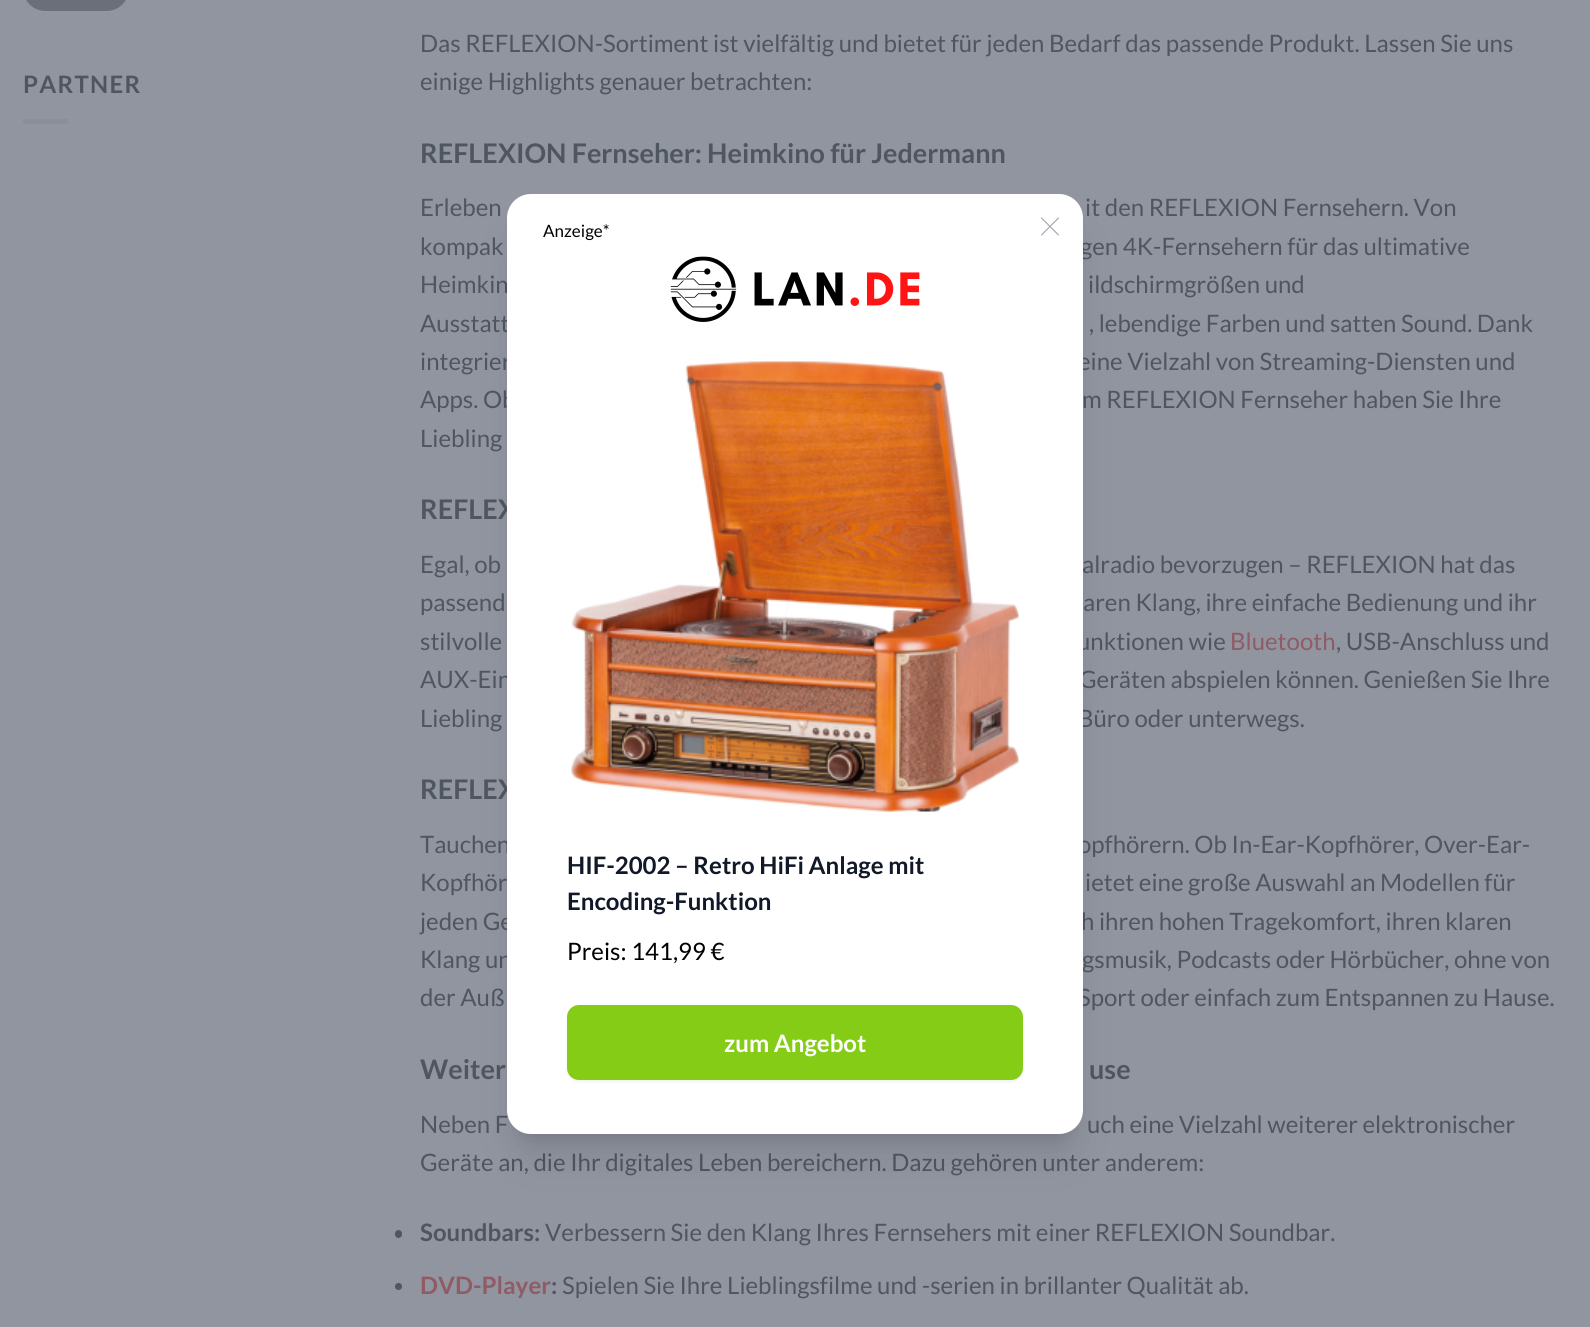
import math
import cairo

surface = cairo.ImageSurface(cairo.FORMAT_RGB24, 1590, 1327)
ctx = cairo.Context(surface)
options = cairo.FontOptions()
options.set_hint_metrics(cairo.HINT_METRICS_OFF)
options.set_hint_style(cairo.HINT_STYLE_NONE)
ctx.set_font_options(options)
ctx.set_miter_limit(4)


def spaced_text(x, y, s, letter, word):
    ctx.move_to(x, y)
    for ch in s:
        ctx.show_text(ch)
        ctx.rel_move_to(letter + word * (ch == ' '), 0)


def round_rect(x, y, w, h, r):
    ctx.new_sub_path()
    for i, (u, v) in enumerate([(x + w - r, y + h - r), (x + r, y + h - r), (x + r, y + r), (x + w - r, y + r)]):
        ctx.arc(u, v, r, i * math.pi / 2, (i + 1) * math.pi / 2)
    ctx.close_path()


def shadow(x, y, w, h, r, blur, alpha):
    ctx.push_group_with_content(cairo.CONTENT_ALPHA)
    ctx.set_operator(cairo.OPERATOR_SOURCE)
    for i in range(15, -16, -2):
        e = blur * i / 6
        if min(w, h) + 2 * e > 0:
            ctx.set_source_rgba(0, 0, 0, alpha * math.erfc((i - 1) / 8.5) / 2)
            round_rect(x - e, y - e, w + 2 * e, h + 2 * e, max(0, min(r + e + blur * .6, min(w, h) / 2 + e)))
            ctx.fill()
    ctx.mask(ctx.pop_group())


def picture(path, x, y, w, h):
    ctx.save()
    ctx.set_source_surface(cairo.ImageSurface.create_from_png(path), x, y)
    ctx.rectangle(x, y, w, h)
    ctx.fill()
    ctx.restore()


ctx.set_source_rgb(0.565, 0.584, 0.627)
ctx.paint()
ctx.set_source_rgb(0.416, 0.435, 0.478)
round_rect(23, -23, 106, 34, 22.5)
ctx.fill()
ctx.select_font_face("Lato", cairo.FONT_SLANT_NORMAL, cairo.FONT_WEIGHT_BOLD)
ctx.set_font_size(24)
ctx.set_source_rgb(0.314, 0.337, 0.376)
spaced_text(23, 93, "PARTNER", 1.25, 0)
ctx.set_source_rgb(0.541, 0.561, 0.604)
ctx.rectangle(23, 119, 45, 5)
ctx.fill()
ctx.select_font_face("Lato")
ctx.set_source_rgb(0.314, 0.337, 0.376)
ctx.move_to(420, 52)
ctx.show_text("Das REFLEXION-Sortiment ist vielfältig und bietet für jeden Bedarf das passende Produkt. Lassen Sie uns")
ctx.move_to(420, 90)
ctx.show_text("einige Highlights genauer betrachten:")
ctx.select_font_face("Lato", cairo.FONT_SLANT_NORMAL, cairo.FONT_WEIGHT_BOLD)
ctx.set_font_size(27)
ctx.move_to(420, 163)
ctx.show_text("REFLEXION Fernseher: Heimkino für Jedermann")
ctx.select_font_face("Lato")
ctx.set_font_size(24)
ctx.move_to(420, 216)
ctx.show_text("Erleben")
ctx.move_to(1085, 216)
ctx.show_text("it den REFLEXION Fernsehern. Von")
ctx.move_to(420, 255)
ctx.show_text("kompak")
ctx.move_to(1080, 255)
ctx.show_text("gen 4K-Fernsehern für das ultimative")
ctx.move_to(420, 293)
ctx.show_text("Heimkin")
ctx.move_to(1088, 293)
ctx.show_text("ildschirmgrößen und")
ctx.move_to(420, 332)
ctx.show_text("Ausstatt")
ctx.move_to(1089, 332)
ctx.show_text(", lebendige Farben und satten Sound. Dank")
ctx.move_to(420, 370)
ctx.show_text("integrier")
ctx.move_to(1078, 370)
ctx.show_text("eine Vielzahl von Streaming-Diensten und")
ctx.move_to(420, 408)
ctx.show_text("Apps. Ob")
ctx.move_to(1082, 408)
ctx.show_text("m REFLEXION Fernseher haben Sie Ihre")
ctx.move_to(420, 447)
ctx.show_text("Liebling")
ctx.select_font_face("Lato", cairo.FONT_SLANT_NORMAL, cairo.FONT_WEIGHT_BOLD)
ctx.set_font_size(27)
ctx.move_to(420, 519)
ctx.show_text("REFLEX")
ctx.select_font_face("Lato")
ctx.set_font_size(24)
ctx.move_to(420, 573)
ctx.show_text("Egal, ob")
ctx.move_to(1082, 573)
ctx.show_text("alradio bevorzugen – REFLEXION hat das")
ctx.move_to(420, 611)
ctx.show_text("passend")
ctx.move_to(1083, 611)
ctx.show_text("aren Klang, ihre einfache Bedienung und ihr")
ctx.move_to(420, 650)
ctx.show_text("stilvolle")
ctx.move_to(1077, 650)
ctx.show_text("unktionen wie")
ctx.set_source_rgb(0.565, 0.357, 0.396)
ctx.move_to(1230, 650)
ctx.show_text("Bluetooth")
ctx.set_source_rgb(0.314, 0.337, 0.376)
ctx.move_to(1336, 650)
ctx.show_text(", USB-Anschluss und")
ctx.move_to(420, 688)
ctx.show_text("AUX-Ein")
ctx.move_to(1079, 688)
ctx.show_text("Geräten abspielen können. Genießen Sie Ihre")
ctx.move_to(420, 727)
ctx.show_text("Liebling")
ctx.move_to(1078, 727)
ctx.show_text("Büro oder unterwegs.")
ctx.select_font_face("Lato", cairo.FONT_SLANT_NORMAL, cairo.FONT_WEIGHT_BOLD)
ctx.set_font_size(27)
ctx.move_to(420, 799)
ctx.show_text("REFLEX")
ctx.select_font_face("Lato")
ctx.set_font_size(24)
ctx.move_to(420, 853)
ctx.show_text("Tauchen")
ctx.move_to(1078, 853)
ctx.show_text("opfhörern. Ob In-Ear-Kopfhörer, Over-Ear-")
ctx.move_to(420, 891)
ctx.show_text("Kopfhör")
ctx.move_to(1085, 891)
ctx.show_text("ietet eine große Auswahl an Modellen für")
ctx.move_to(420, 930)
ctx.show_text("jeden Ge")
ctx.move_to(1081, 930)
ctx.show_text("h ihren hohen Tragekomfort, ihren klaren")
ctx.move_to(420, 968)
ctx.show_text("Klang un")
ctx.move_to(1082, 968)
ctx.show_text("gsmusik, Podcasts oder Hörbücher, ohne von")
ctx.move_to(420, 1006)
ctx.show_text("der Auß")
ctx.move_to(1078, 1006)
ctx.show_text("Sport oder einfach zum Entspannen zu Hause.")
ctx.select_font_face("Lato", cairo.FONT_SLANT_NORMAL, cairo.FONT_WEIGHT_BOLD)
ctx.set_font_size(27)
ctx.move_to(420, 1079)
ctx.show_text("Weiter")
ctx.move_to(1089, 1079)
ctx.show_text("use")
ctx.select_font_face("Lato")
ctx.set_font_size(24)
ctx.move_to(420, 1133)
ctx.show_text("Neben F")
ctx.move_to(1087, 1133)
ctx.show_text("uch eine Vielzahl weiterer elektronischer")
ctx.move_to(420, 1171)
ctx.show_text("Geräte an, die Ihr digitales Leben bereichern. Dazu gehören unter anderem:")
round_rect(395, 1230, 7, 8, 3.5)
ctx.fill()
ctx.select_font_face("Lato", cairo.FONT_SLANT_NORMAL, cairo.FONT_WEIGHT_BOLD)
ctx.move_to(420, 1241)
ctx.show_text("Soundbars:")
ctx.select_font_face("Lato")
ctx.move_to(545, 1241)
ctx.show_text("Verbessern Sie den Klang Ihres Fernsehers mit einer REFLEXION Soundbar.")
ctx.new_path()
ctx.arc(398.5, 1286.5, 3.5, 0, 2 * math.pi)
ctx.fill()
ctx.select_font_face("Lato", cairo.FONT_SLANT_NORMAL, cairo.FONT_WEIGHT_BOLD)
ctx.set_source_rgb(0.565, 0.357, 0.396)
ctx.move_to(420, 1294)
ctx.show_text("DVD-Player")
ctx.set_source_rgb(0.314, 0.337, 0.376)
ctx.move_to(551, 1294)
ctx.show_text(":")
ctx.select_font_face("Lato")
ctx.move_to(562, 1294)
ctx.show_text("Spielen Sie Ihre Lieblingsfilme und -serien in brillanter Qualität ab.")
ctx.set_source_rgb(0, 0, 0)
shadow(516, 215, 558, 922, 15, 7.5, 0.1)
shadow(515, 231, 561, 926, 17, 19, 0.1)
ctx.set_source_rgb(1, 1, 1)
round_rect(507, 194, 576, 940, 24)
ctx.fill()
ctx.set_font_size(17)
ctx.set_source_rgb(0, 0, 0)
ctx.move_to(543, 237)
ctx.show_text("Anzeige*")
ctx.new_path()
ctx.move_to(1041.5, 235)
ctx.line_to(1058.5, 218)
ctx.move_to(1041.5, 218)
ctx.line_to(1058.5, 235)
ctx.set_source_rgb(0.612, 0.639, 0.686)
ctx.set_line_width(1.1)
ctx.set_line_cap(cairo.LINE_CAP_ROUND)
ctx.set_line_join(cairo.LINE_JOIN_ROUND)
ctx.stroke()
picture("img1.png", 670, 256, 250, 66)
picture("img2.png", 571, 361, 448, 451)
ctx.select_font_face("Lato", cairo.FONT_SLANT_NORMAL, cairo.FONT_WEIGHT_BOLD)
ctx.set_font_size(24)
ctx.set_source_rgb(0.067, 0.094, 0.153)
ctx.move_to(567, 874)
ctx.show_text("HIF-2002 – Retro HiFi Anlage mit")
ctx.move_to(567, 910)
ctx.show_text("Encoding-Funktion")
ctx.select_font_face("Lato")
ctx.set_source_rgb(0, 0, 0)
ctx.move_to(567, 960)
ctx.show_text("Preis: 141,99 €")
ctx.set_source_rgb(0, 0, 0)
shadow(567, 1007, 456, 75, 12, 1.5, 0.05)
ctx.set_source_rgb(0.518, 0.8, 0.086)
round_rect(567, 1005, 456, 75, 12)
ctx.fill()
ctx.select_font_face("Lato", cairo.FONT_SLANT_NORMAL, cairo.FONT_WEIGHT_BOLD)
ctx.set_source_rgb(1, 1, 1)
ctx.move_to(724, 1052)
ctx.show_text("zum Angebot")
surface.write_to_png("page.png")
